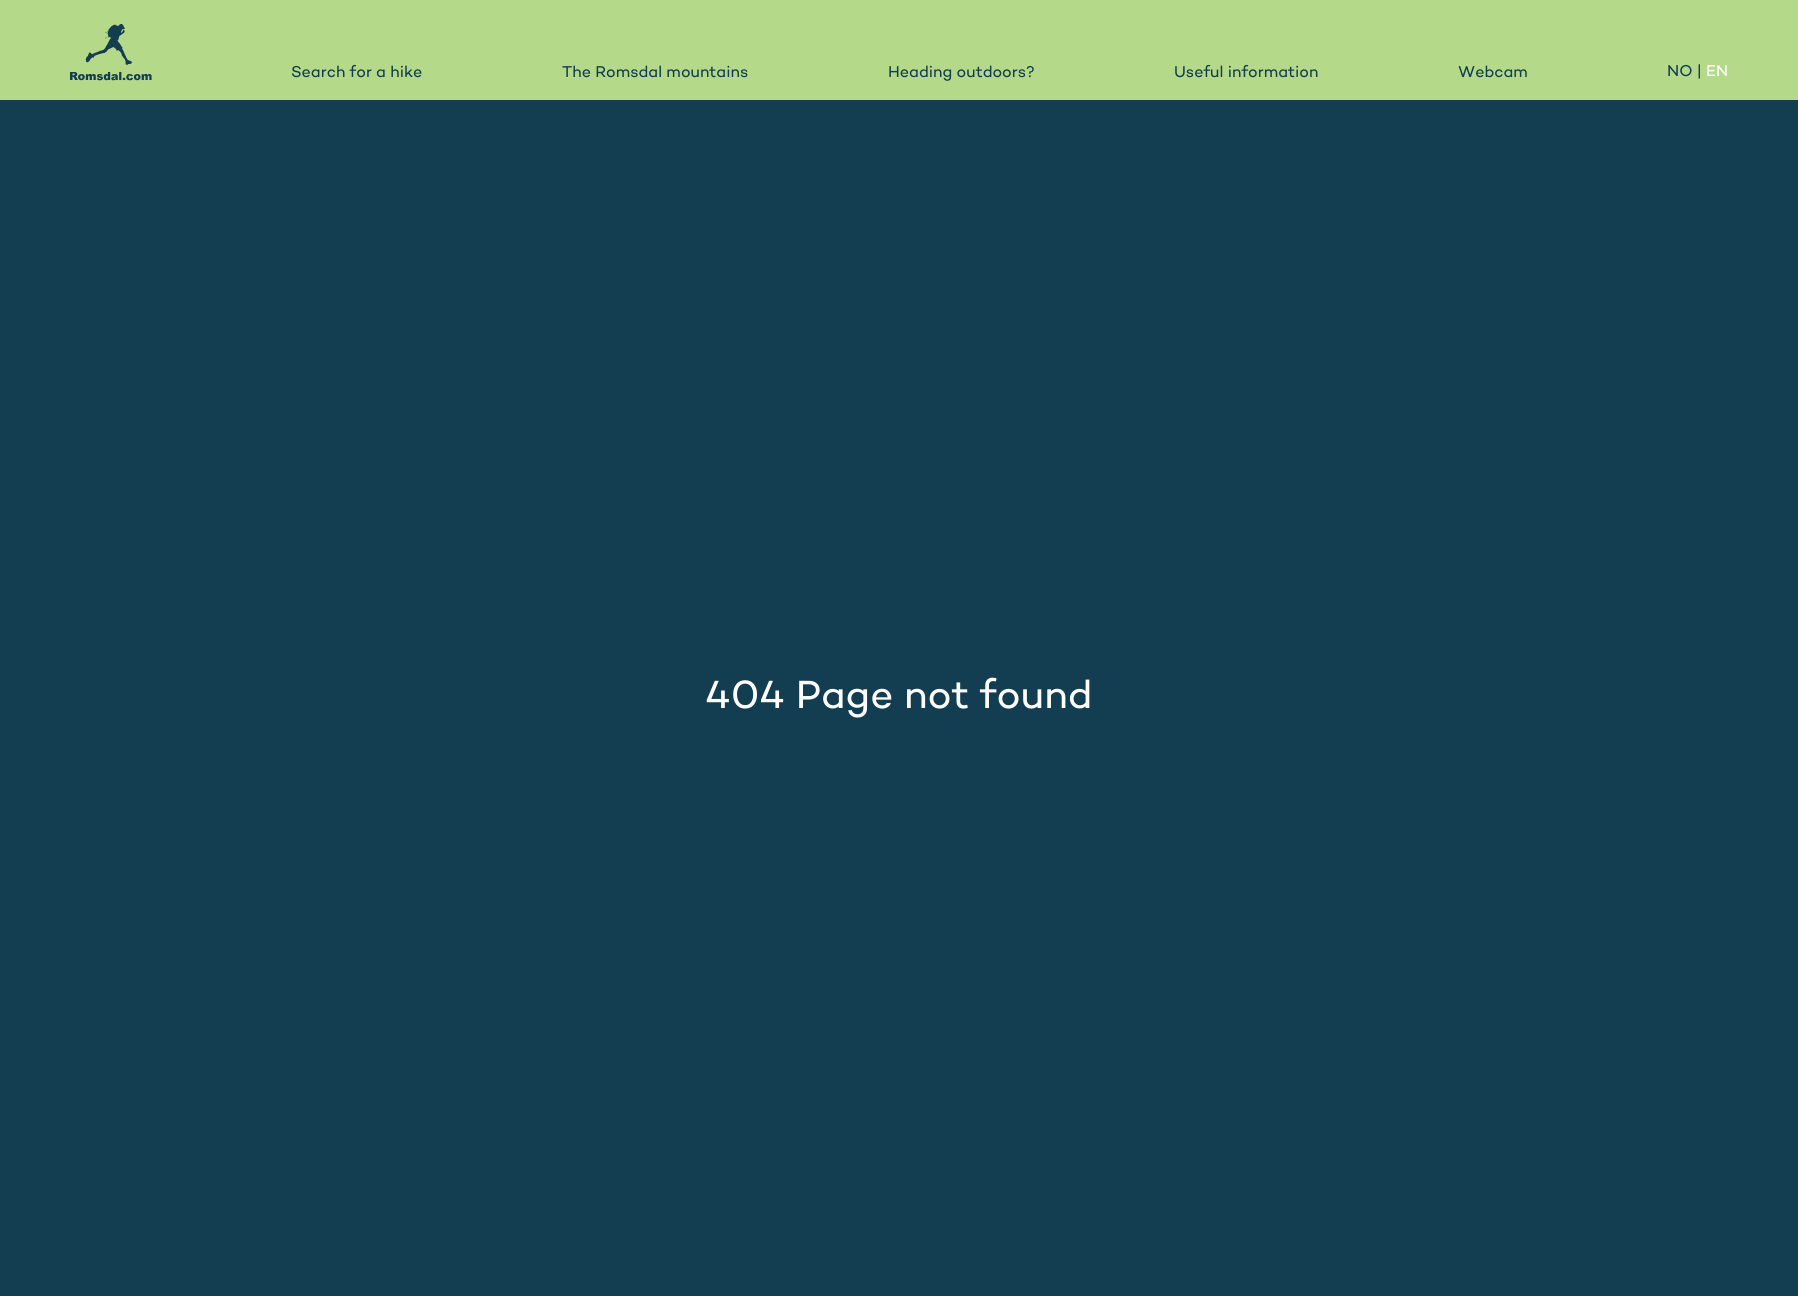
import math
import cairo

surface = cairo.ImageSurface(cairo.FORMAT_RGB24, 1798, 1296)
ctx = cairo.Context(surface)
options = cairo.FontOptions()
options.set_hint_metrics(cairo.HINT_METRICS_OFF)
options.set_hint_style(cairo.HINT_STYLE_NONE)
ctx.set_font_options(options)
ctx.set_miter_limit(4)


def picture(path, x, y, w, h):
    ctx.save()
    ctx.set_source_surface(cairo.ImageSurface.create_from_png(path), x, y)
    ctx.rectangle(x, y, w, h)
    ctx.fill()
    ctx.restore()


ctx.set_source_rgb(0.078, 0.239, 0.314)
ctx.paint()
ctx.set_source_rgb(0.706, 0.851, 0.537)
ctx.rectangle(0, 0, 1798, 100)
ctx.fill()
picture("img1.png", 70, 24, 82, 57)
ctx.select_font_face("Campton")
ctx.set_font_size(16)
ctx.set_source_rgb(0.078, 0.239, 0.314)
ctx.move_to(291, 77)
ctx.show_text("Search for a hike")
ctx.move_to(562, 77)
ctx.show_text("The Romsdal mountains")
ctx.move_to(888, 77)
ctx.show_text("Heading outdoors?")
ctx.move_to(1174, 77)
ctx.show_text("Useful information")
ctx.move_to(1458, 77)
ctx.show_text("Webcam")
ctx.move_to(1667, 76)
ctx.show_text("NO |")
ctx.set_source_rgb(1, 1, 1)
ctx.move_to(1706, 76)
ctx.show_text("EN")
ctx.set_font_size(40)
ctx.move_to(705, 708)
ctx.show_text("404 Page not found")
surface.write_to_png("page.png")
